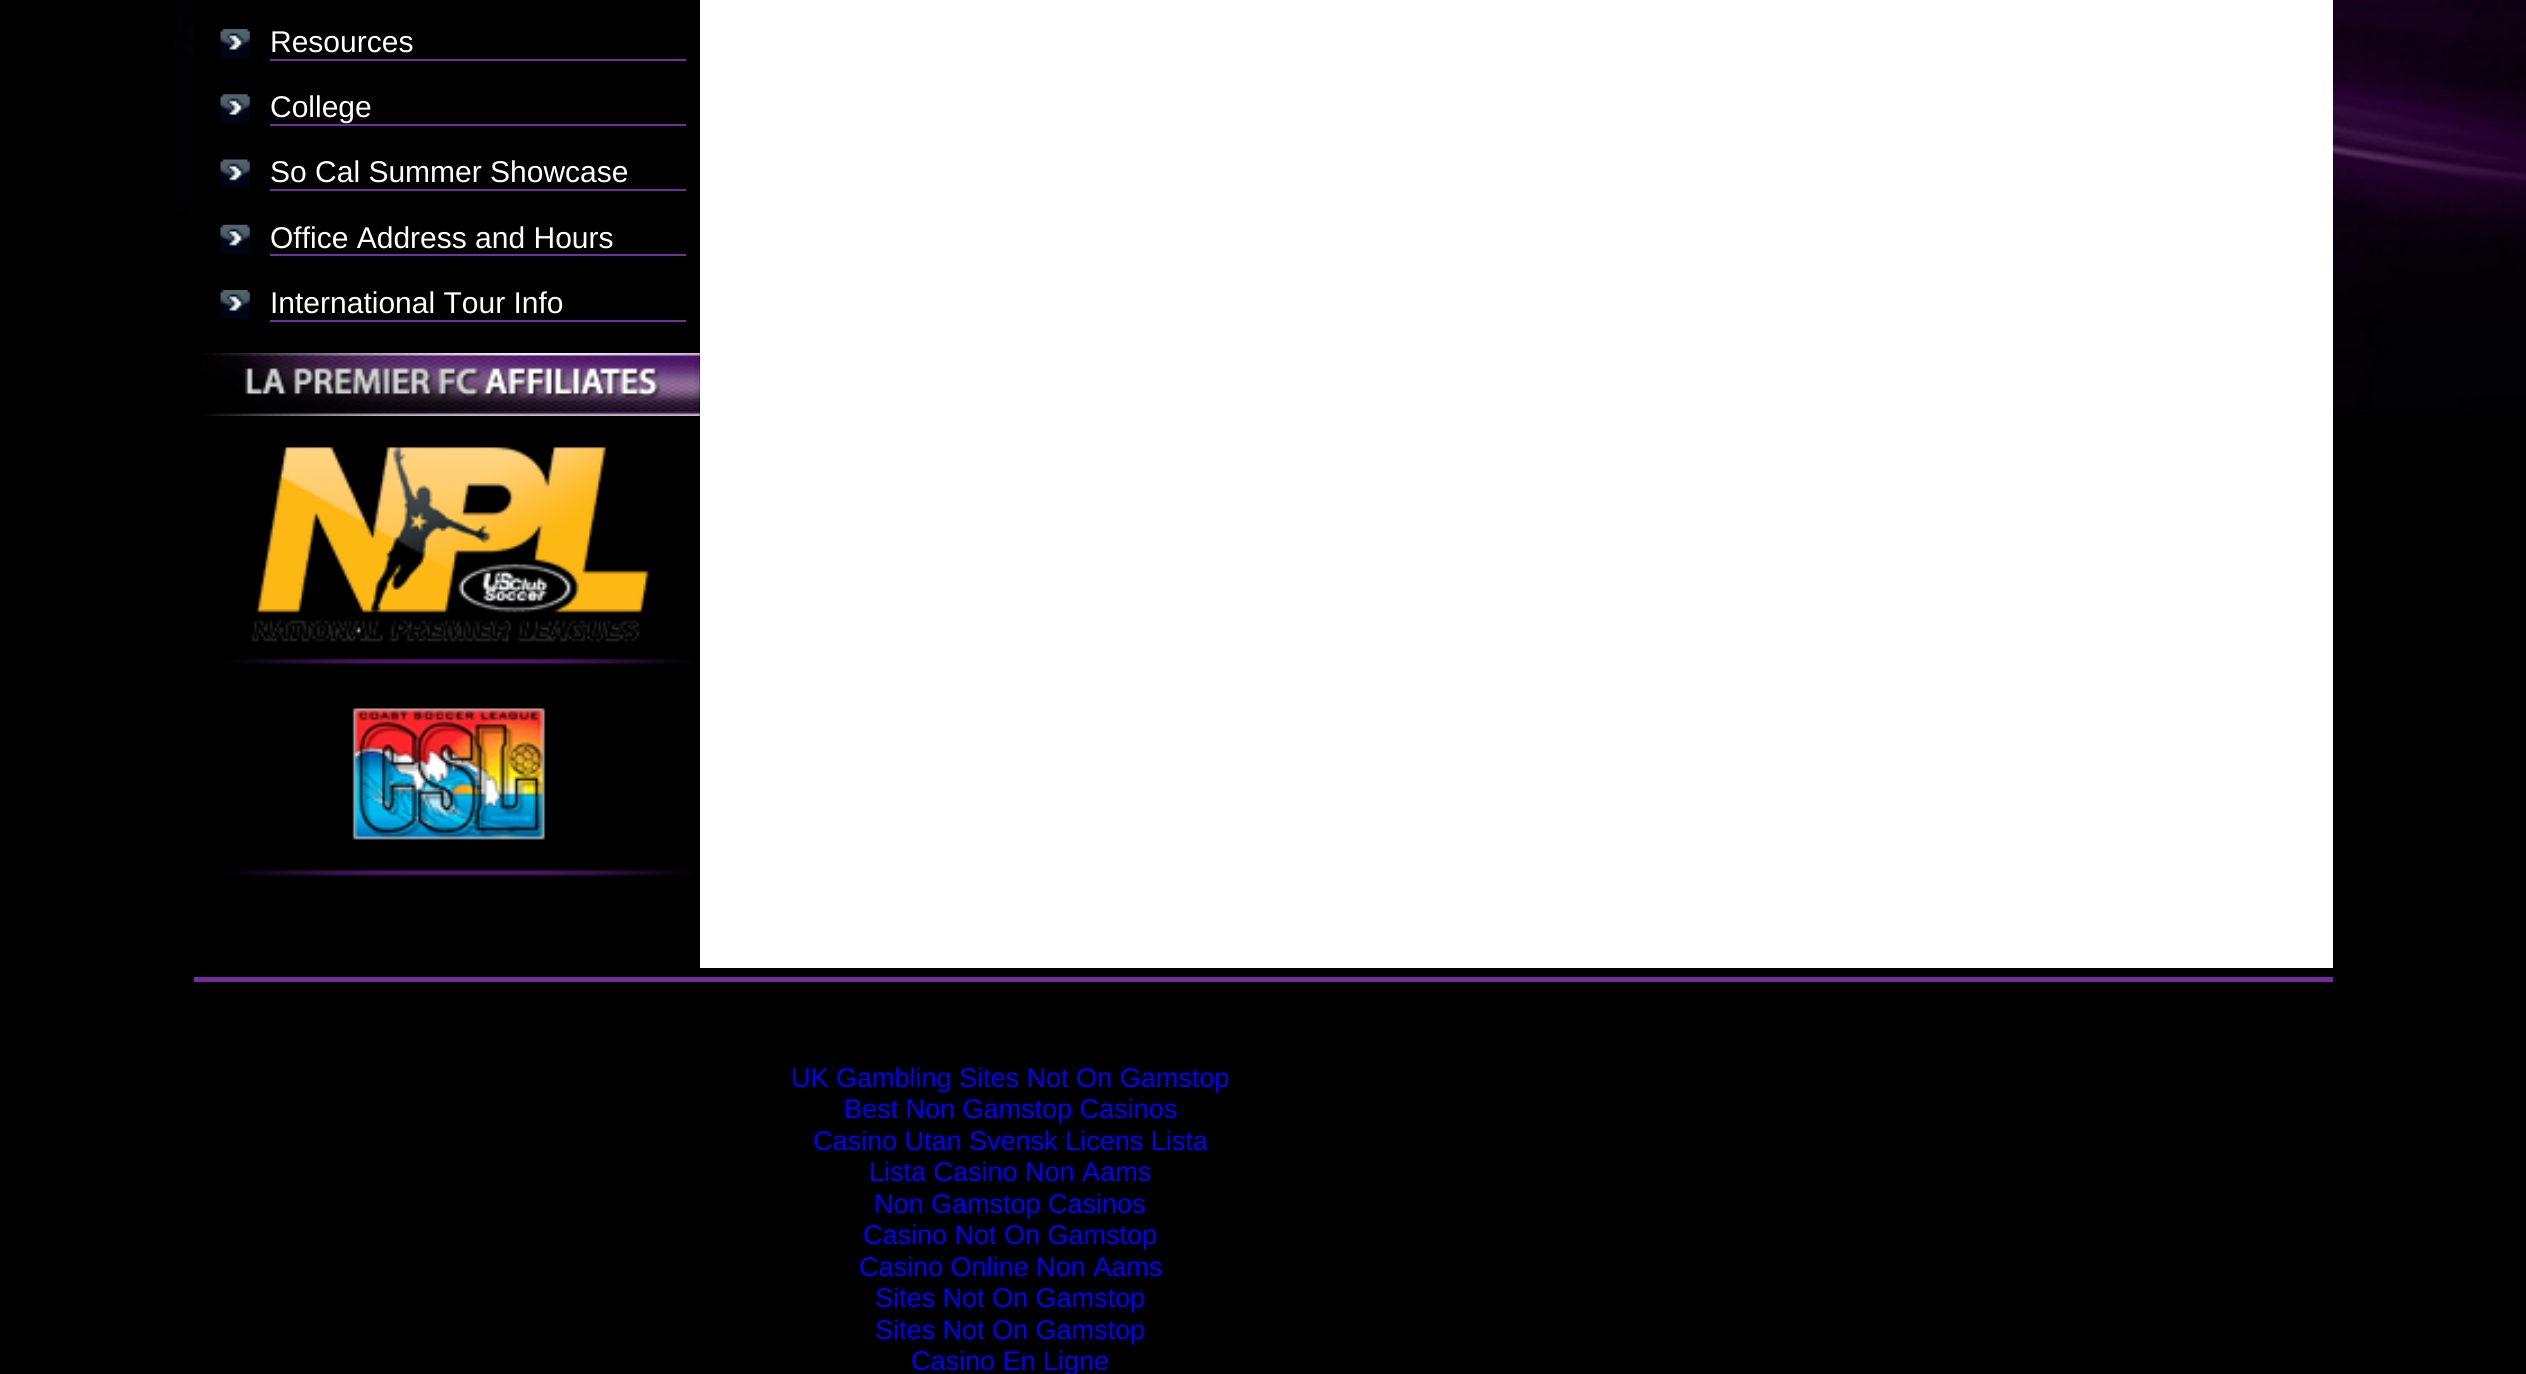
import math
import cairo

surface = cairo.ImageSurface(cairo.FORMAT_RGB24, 2526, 1374)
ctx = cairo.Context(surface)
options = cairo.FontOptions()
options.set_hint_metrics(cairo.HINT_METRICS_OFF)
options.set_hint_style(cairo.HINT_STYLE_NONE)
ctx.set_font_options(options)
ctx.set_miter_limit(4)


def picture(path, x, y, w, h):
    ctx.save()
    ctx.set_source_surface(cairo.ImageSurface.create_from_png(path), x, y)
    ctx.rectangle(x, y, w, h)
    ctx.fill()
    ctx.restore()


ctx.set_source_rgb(0, 0, 0)
ctx.paint()
picture("img1.png", 174, 0, 2352, 412)
ctx.set_source_rgb(0, 0, 0)
ctx.rectangle(194, 0, 506, 325)
ctx.fill()
picture("img2.png", 220, 29, 30, 30)
ctx.set_source_rgb(0.451, 0.184, 0.592)
ctx.rectangle(270, 59, 416, 2)
ctx.fill()
ctx.select_font_face("Liberation Sans")
ctx.set_font_size(30)
ctx.set_source_rgb(1, 1, 1)
ctx.move_to(270, 52)
ctx.show_text("Resources")
picture("img3.png", 220, 94, 30, 30)
ctx.set_source_rgb(0.451, 0.184, 0.592)
ctx.rectangle(270, 124, 416, 2)
ctx.fill()
ctx.set_source_rgb(1, 1, 1)
ctx.move_to(270, 117)
ctx.show_text("College")
picture("img4.png", 220, 159, 30, 30)
ctx.set_source_rgb(0.451, 0.184, 0.592)
ctx.rectangle(270, 189, 416, 2)
ctx.fill()
ctx.set_source_rgb(1, 1, 1)
ctx.move_to(270, 182)
ctx.show_text("So Cal Summer Showcase")
picture("img5.png", 220, 224, 30, 30)
ctx.set_source_rgb(0.451, 0.184, 0.592)
ctx.rectangle(270, 254, 416, 2)
ctx.fill()
ctx.set_source_rgb(1, 1, 1)
ctx.move_to(270, 248)
ctx.show_text("Office Address and Hours")
picture("img2.png", 220, 290, 30, 30)
ctx.set_source_rgb(0.451, 0.184, 0.592)
ctx.rectangle(270, 320, 416, 2)
ctx.fill()
ctx.set_source_rgb(1, 1, 1)
ctx.move_to(270, 313)
ctx.show_text("International Tour Info")
picture("img6.png", 203, 353, 497, 63)
picture("img7.png", 228, 447, 465, 218)
picture("img8.png", 228, 708, 465, 168)
ctx.rectangle(700, 0, 1633, 968)
ctx.fill()
ctx.set_source_rgb(0.451, 0.184, 0.592)
ctx.rectangle(194, 977, 2139, 5)
ctx.fill()
ctx.set_font_size(27)
ctx.set_source_rgb(0, 0, 1)
ctx.move_to(791, 1087)
ctx.show_text("UK Gambling Sites Not On Gamstop")
ctx.move_to(844, 1118)
ctx.show_text("Best Non Gamstop Casinos")
ctx.move_to(813, 1150)
ctx.show_text("Casino Utan Svensk Licens Lista")
ctx.move_to(869, 1181)
ctx.show_text("Lista Casino Non Aams")
ctx.move_to(874, 1213)
ctx.show_text("Non Gamstop Casinos")
ctx.move_to(863, 1244)
ctx.show_text("Casino Not On Gamstop")
ctx.move_to(859, 1276)
ctx.show_text("Casino Online Non Aams")
ctx.move_to(875, 1307)
ctx.show_text("Sites Not On Gamstop")
ctx.move_to(875, 1339)
ctx.show_text("Sites Not On Gamstop")
ctx.move_to(911, 1370)
ctx.show_text("Casino En Ligne")
surface.write_to_png("page.png")
